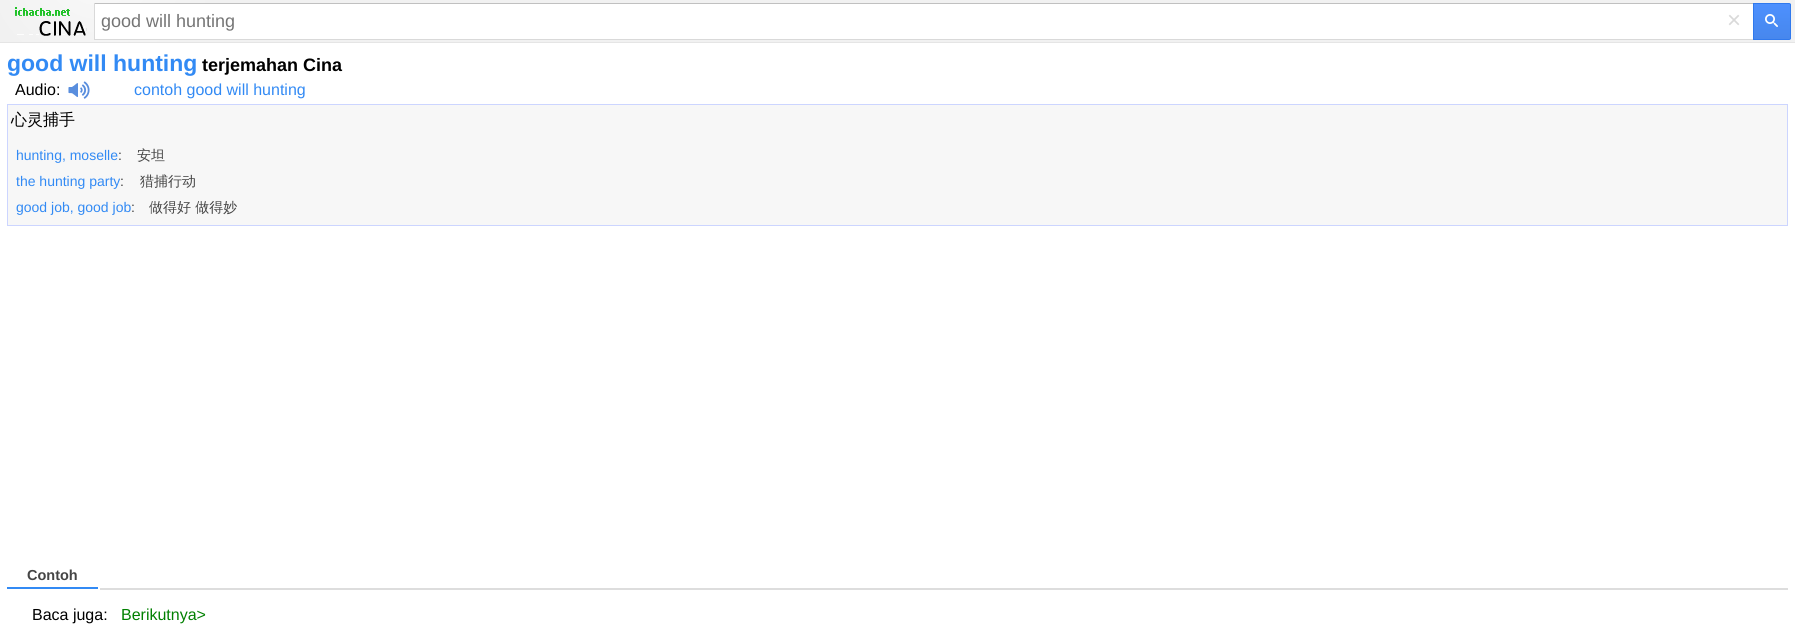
import math
import cairo

surface = cairo.ImageSurface(cairo.FORMAT_RGB24, 1795, 628)
ctx = cairo.Context(surface)
options = cairo.FontOptions()
options.set_hint_metrics(cairo.HINT_METRICS_OFF)
options.set_hint_style(cairo.HINT_STYLE_NONE)
ctx.set_font_options(options)
ctx.set_miter_limit(4)


def picture(path, x, y, w, h):
    ctx.save()
    ctx.set_source_surface(cairo.ImageSurface.create_from_png(path), x, y)
    ctx.rectangle(x, y, w, h)
    ctx.fill()
    ctx.restore()


ctx.set_source_rgb(1, 1, 1)
ctx.paint()
gradient = cairo.RadialGradient(100, -40, 0, 100, -40, 120)
gradient.add_color_stop_rgba(0, 0.98, 0.98, 0.98, 1)
gradient.add_color_stop_rgba(1, 0.945, 0.945, 0.945, 1)
ctx.set_source(gradient)
ctx.rectangle(0, 0, 1795, 42)
ctx.fill()
ctx.set_source_rgb(0.898, 0.898, 0.898)
ctx.rectangle(0, 42, 1795, 1)
ctx.fill()
picture("img1.png", 15, 7, 72, 29)
ctx.set_source_rgb(1, 1, 1)
ctx.rectangle(95, 4, 1658, 35)
ctx.fill()
ctx.set_source_rgb(0.753, 0.753, 0.753)
ctx.rectangle(94, 3, 1659, 1)
ctx.fill()
ctx.set_source_rgb(0.851, 0.851, 0.851)
ctx.rectangle(94, 39, 1659, 1)
ctx.fill()
ctx.rectangle(94, 3, 1, 37)
ctx.fill()
ctx.select_font_face("Liberation Sans")
ctx.set_font_size(18)
ctx.set_source_rgb(0.459, 0.459, 0.459)
ctx.move_to(101, 27)
ctx.show_text("good will hunting")
ctx.set_font_size(24)
ctx.set_source_rgb(0.851, 0.851, 0.851)
ctx.move_to(1727, 28)
ctx.show_text("×")
gradient = cairo.LinearGradient(1754, 4, 1754, 39)
gradient.add_color_stop_rgba(0, 0.302, 0.565, 0.996, 1)
gradient.add_color_stop_rgba(1, 0.278, 0.529, 0.929, 1)
ctx.set_source(gradient)
ctx.rectangle(1754, 4, 37, 35)
ctx.fill()
ctx.new_path()
ctx.move_to(1753.5, 3.5)
ctx.line_to(1789, 3.5)
ctx.curve_to(1790, 3.5, 1790.5, 4, 1790.5, 5)
ctx.line_to(1790.5, 38)
ctx.curve_to(1790.5, 39, 1790, 39.5, 1789, 39.5)
ctx.line_to(1753.5, 39.5)
ctx.close_path()
ctx.set_source_rgb(0.188, 0.475, 0.929)
ctx.set_line_width(1)
ctx.stroke()
picture("img2.png", 1765, 14, 13, 13)
ctx.select_font_face("Liberation Sans", cairo.FONT_SLANT_NORMAL, cairo.FONT_WEIGHT_BOLD)
ctx.set_font_size(23)
ctx.set_source_rgb(0.196, 0.541, 0.957)
ctx.move_to(7, 71)
ctx.show_text("good will hunting")
ctx.set_font_size(18)
ctx.set_source_rgb(0, 0, 0)
ctx.move_to(202, 71)
ctx.show_text("terjemahan Cina")
ctx.select_font_face("Liberation Sans")
ctx.set_font_size(16)
ctx.move_to(15, 95)
ctx.show_text("Audio:")
picture("img3.png", 68, 81, 22, 18)
ctx.set_source_rgb(0.196, 0.541, 0.957)
ctx.move_to(134, 95)
ctx.show_text("contoh good will hunting")
ctx.set_source_rgb(0.965, 0.965, 0.965)
ctx.rectangle(7.5, 104.5, 1780, 121)
ctx.fill_preserve()
ctx.set_source_rgb(0.8, 0.835, 1)
ctx.stroke()
ctx.select_font_face("WenQuanYi Zen Hei Medium")
ctx.set_source_rgb(0, 0, 0)
ctx.move_to(11, 125)
ctx.show_text("心灵捕手")
ctx.select_font_face("Liberation Sans")
ctx.set_font_size(14)
ctx.set_source_rgb(0.196, 0.541, 0.957)
ctx.move_to(16, 160)
ctx.show_text("hunting, moselle")
ctx.set_source_rgb(0.271, 0.271, 0.271)
ctx.move_to(118, 160)
ctx.show_text(":")
ctx.select_font_face("WenQuanYi Zen Hei Medium")
ctx.move_to(137, 160)
ctx.show_text("安坦")
ctx.select_font_face("Liberation Sans")
ctx.set_source_rgb(0.196, 0.541, 0.957)
ctx.move_to(16, 186)
ctx.show_text("the hunting party")
ctx.set_source_rgb(0.271, 0.271, 0.271)
ctx.move_to(120, 186)
ctx.show_text(":")
ctx.select_font_face("WenQuanYi Zen Hei Medium")
ctx.move_to(140, 186)
ctx.show_text("猎捕行动")
ctx.select_font_face("Liberation Sans")
ctx.set_source_rgb(0.196, 0.541, 0.957)
ctx.move_to(16, 212)
ctx.show_text("good job, good job")
ctx.set_source_rgb(0.271, 0.271, 0.271)
ctx.move_to(131, 212)
ctx.show_text(":")
ctx.select_font_face("WenQuanYi Zen Hei Medium")
ctx.move_to(149, 212)
ctx.show_text("做得好 做得妙")
ctx.set_source_rgb(0.867, 0.867, 0.867)
ctx.rectangle(100, 588, 1688, 2)
ctx.fill()
ctx.set_source_rgb(0.196, 0.541, 0.957)
ctx.rectangle(7, 587, 91, 2)
ctx.fill()
ctx.select_font_face("Liberation Sans", cairo.FONT_SLANT_NORMAL, cairo.FONT_WEIGHT_BOLD)
ctx.set_font_size(14.5)
ctx.set_source_rgb(0.271, 0.271, 0.271)
ctx.move_to(27, 580)
ctx.show_text("Contoh")
ctx.select_font_face("Liberation Sans")
ctx.set_font_size(16)
ctx.set_source_rgb(0, 0, 0)
ctx.move_to(32, 620)
ctx.show_text("Baca juga:")
ctx.set_source_rgb(0, 0.502, 0)
ctx.move_to(121, 620)
ctx.show_text("Berikutnya>")
surface.write_to_png("page.png")
